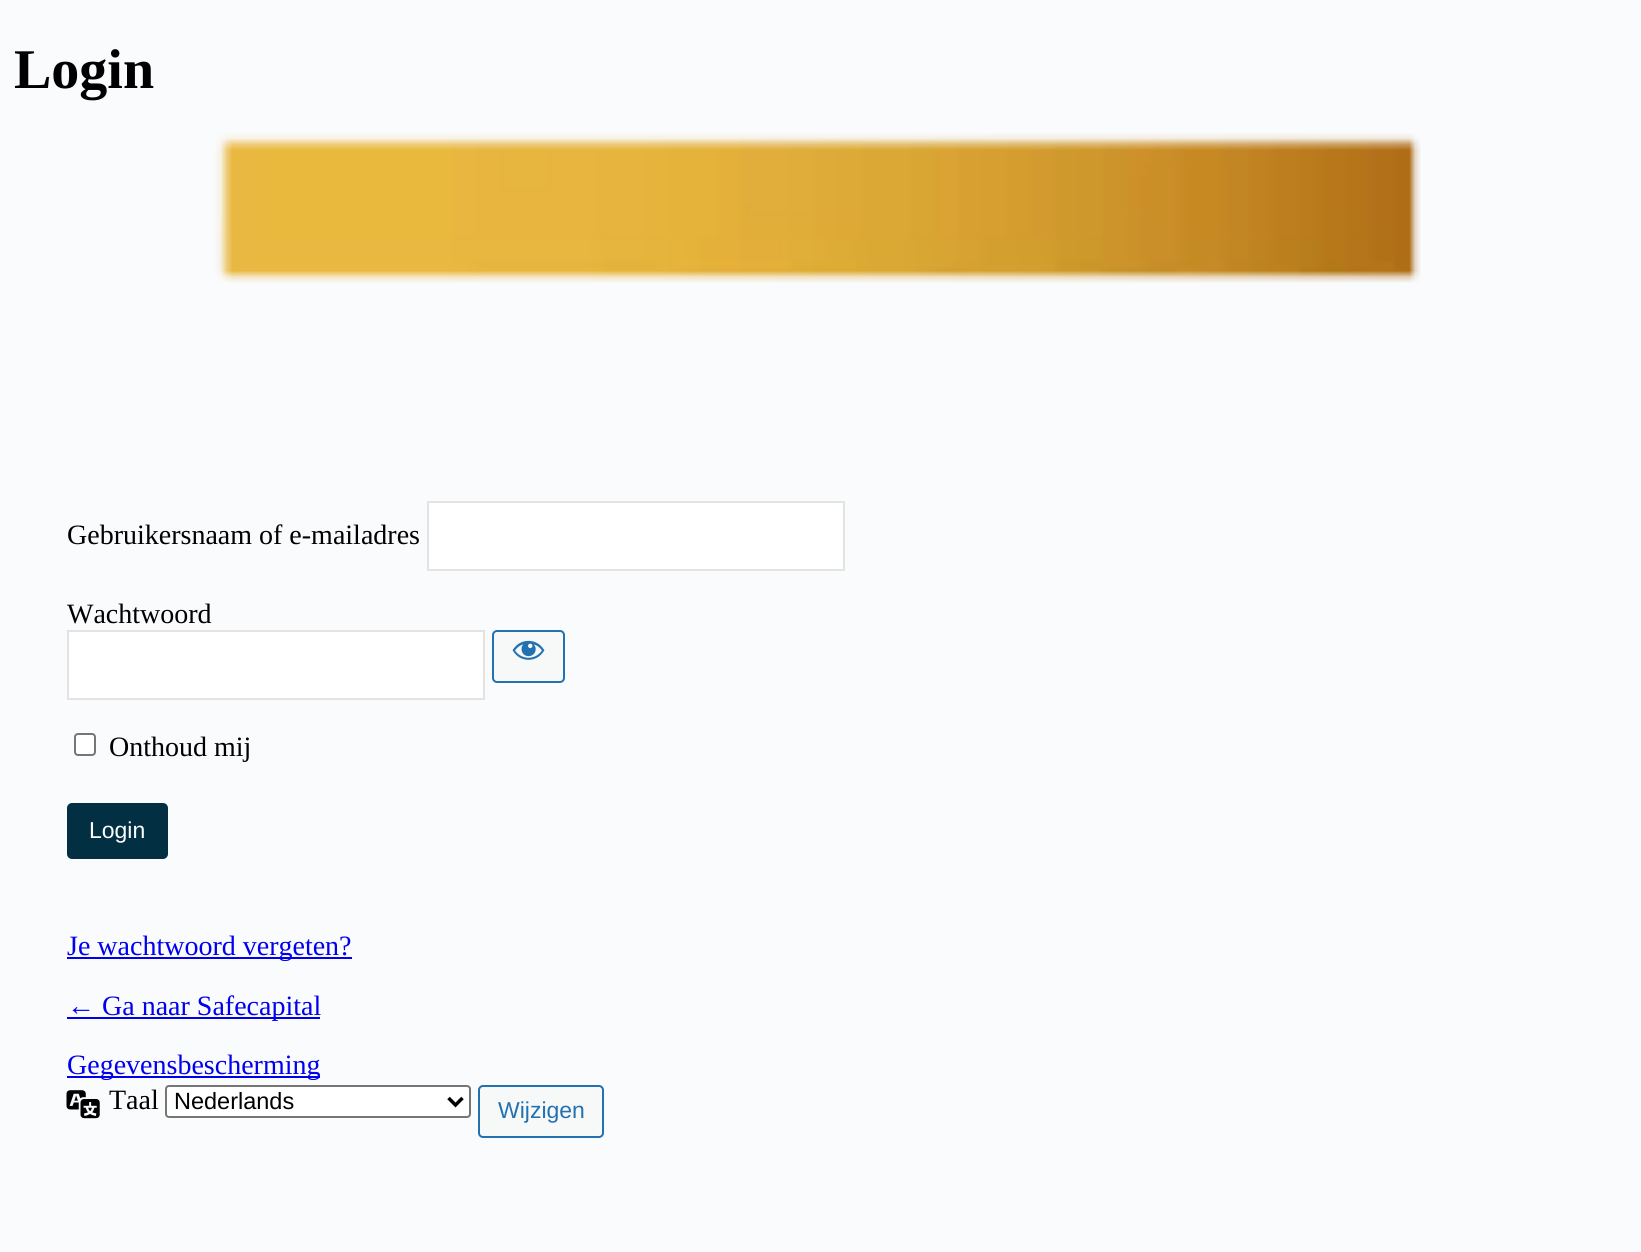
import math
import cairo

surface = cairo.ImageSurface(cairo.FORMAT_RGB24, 1641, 1252)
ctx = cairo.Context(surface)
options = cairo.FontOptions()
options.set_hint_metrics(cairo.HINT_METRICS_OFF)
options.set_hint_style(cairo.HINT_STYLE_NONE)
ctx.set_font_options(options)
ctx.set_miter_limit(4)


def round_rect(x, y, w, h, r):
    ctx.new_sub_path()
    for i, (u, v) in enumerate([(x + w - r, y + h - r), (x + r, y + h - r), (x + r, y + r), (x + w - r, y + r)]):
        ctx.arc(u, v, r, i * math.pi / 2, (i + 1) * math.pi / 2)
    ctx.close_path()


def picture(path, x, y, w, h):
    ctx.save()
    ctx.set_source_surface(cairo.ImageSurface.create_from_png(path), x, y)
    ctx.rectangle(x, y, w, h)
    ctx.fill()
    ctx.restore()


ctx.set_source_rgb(0.98, 0.984, 0.992)
ctx.paint()
ctx.select_font_face("Liberation Serif", cairo.FONT_SLANT_NORMAL, cairo.FONT_WEIGHT_BOLD)
ctx.set_font_size(56)
ctx.set_source_rgb(0, 0, 0)
ctx.move_to(14, 88)
ctx.show_text("Login")
picture("img1.png", 215, 133, 1206, 150)
ctx.select_font_face("Liberation Serif")
ctx.set_font_size(28)
ctx.move_to(67, 544)
ctx.show_text("Gebruikersnaam of e-mailadres")
ctx.set_source_rgb(1, 1, 1)
ctx.rectangle(428, 502, 416, 68)
ctx.fill_preserve()
ctx.set_source_rgb(0.89, 0.89, 0.89)
ctx.stroke()
ctx.set_source_rgb(0, 0, 0)
ctx.move_to(67, 623)
ctx.show_text("Wachtwoord")
ctx.set_source_rgb(1, 1, 1)
ctx.rectangle(68, 631, 416, 68)
ctx.fill_preserve()
ctx.set_source_rgb(0.89, 0.89, 0.89)
ctx.stroke()
ctx.set_source_rgb(0.965, 0.969, 0.969)
round_rect(493, 631, 71, 51, 4)
ctx.fill_preserve()
ctx.set_source_rgb(0.133, 0.443, 0.694)
ctx.stroke()
picture("img2.png", 512, 640, 33, 20)
ctx.set_source_rgb(1, 1, 1)
round_rect(75, 734, 20, 21, 3)
ctx.fill_preserve()
ctx.set_source_rgb(0.463, 0.463, 0.463)
ctx.stroke()
ctx.set_source_rgb(0, 0, 0)
ctx.move_to(109, 756)
ctx.show_text("Onthoud mij")
ctx.set_source_rgb(0.008, 0.188, 0.259)
round_rect(68, 804, 99, 54, 4)
ctx.fill_preserve()
ctx.stroke()
ctx.select_font_face("Liberation Sans")
ctx.set_font_size(23)
ctx.set_source_rgb(1, 1, 1)
ctx.move_to(89, 838)
ctx.show_text("Login")
ctx.set_source_rgb(0, 0, 0.933)
ctx.rectangle(67, 957, 285, 2)
ctx.fill()
ctx.select_font_face("Liberation Serif")
ctx.set_font_size(28)
ctx.move_to(67, 955)
ctx.show_text("Je wachtwoord vergeten?")
ctx.rectangle(67, 1017, 253, 2)
ctx.fill()
ctx.move_to(67, 1015)
ctx.show_text("← Ga naar Safecapital")
ctx.rectangle(67, 1076, 253, 2)
ctx.fill()
ctx.move_to(67, 1074)
ctx.show_text("Gegevensbescherming")
picture("img3.png", 66, 1090, 34, 29)
ctx.set_source_rgb(0, 0, 0)
ctx.move_to(109, 1109)
ctx.show_text("Taal")
ctx.set_source_rgb(1, 1, 1)
round_rect(166, 1086, 304, 31, 3)
ctx.fill_preserve()
ctx.set_source_rgb(0.463, 0.463, 0.463)
ctx.stroke()
ctx.new_path()
ctx.move_to(448.5, 1098)
ctx.line_to(455.5, 1105)
ctx.line_to(462.5, 1098)
ctx.set_source_rgb(0, 0, 0)
ctx.set_line_width(3.5)
ctx.stroke()
ctx.select_font_face("Liberation Sans")
ctx.set_font_size(23.5)
ctx.move_to(174, 1109)
ctx.show_text("Nederlands")
ctx.set_source_rgb(0.965, 0.969, 0.969)
round_rect(479, 1086, 124, 51, 4)
ctx.fill_preserve()
ctx.set_source_rgb(0.133, 0.443, 0.694)
ctx.set_line_width(2)
ctx.stroke()
ctx.set_font_size(23)
ctx.move_to(498, 1118)
ctx.show_text("Wijzigen")
surface.write_to_png("page.png")
